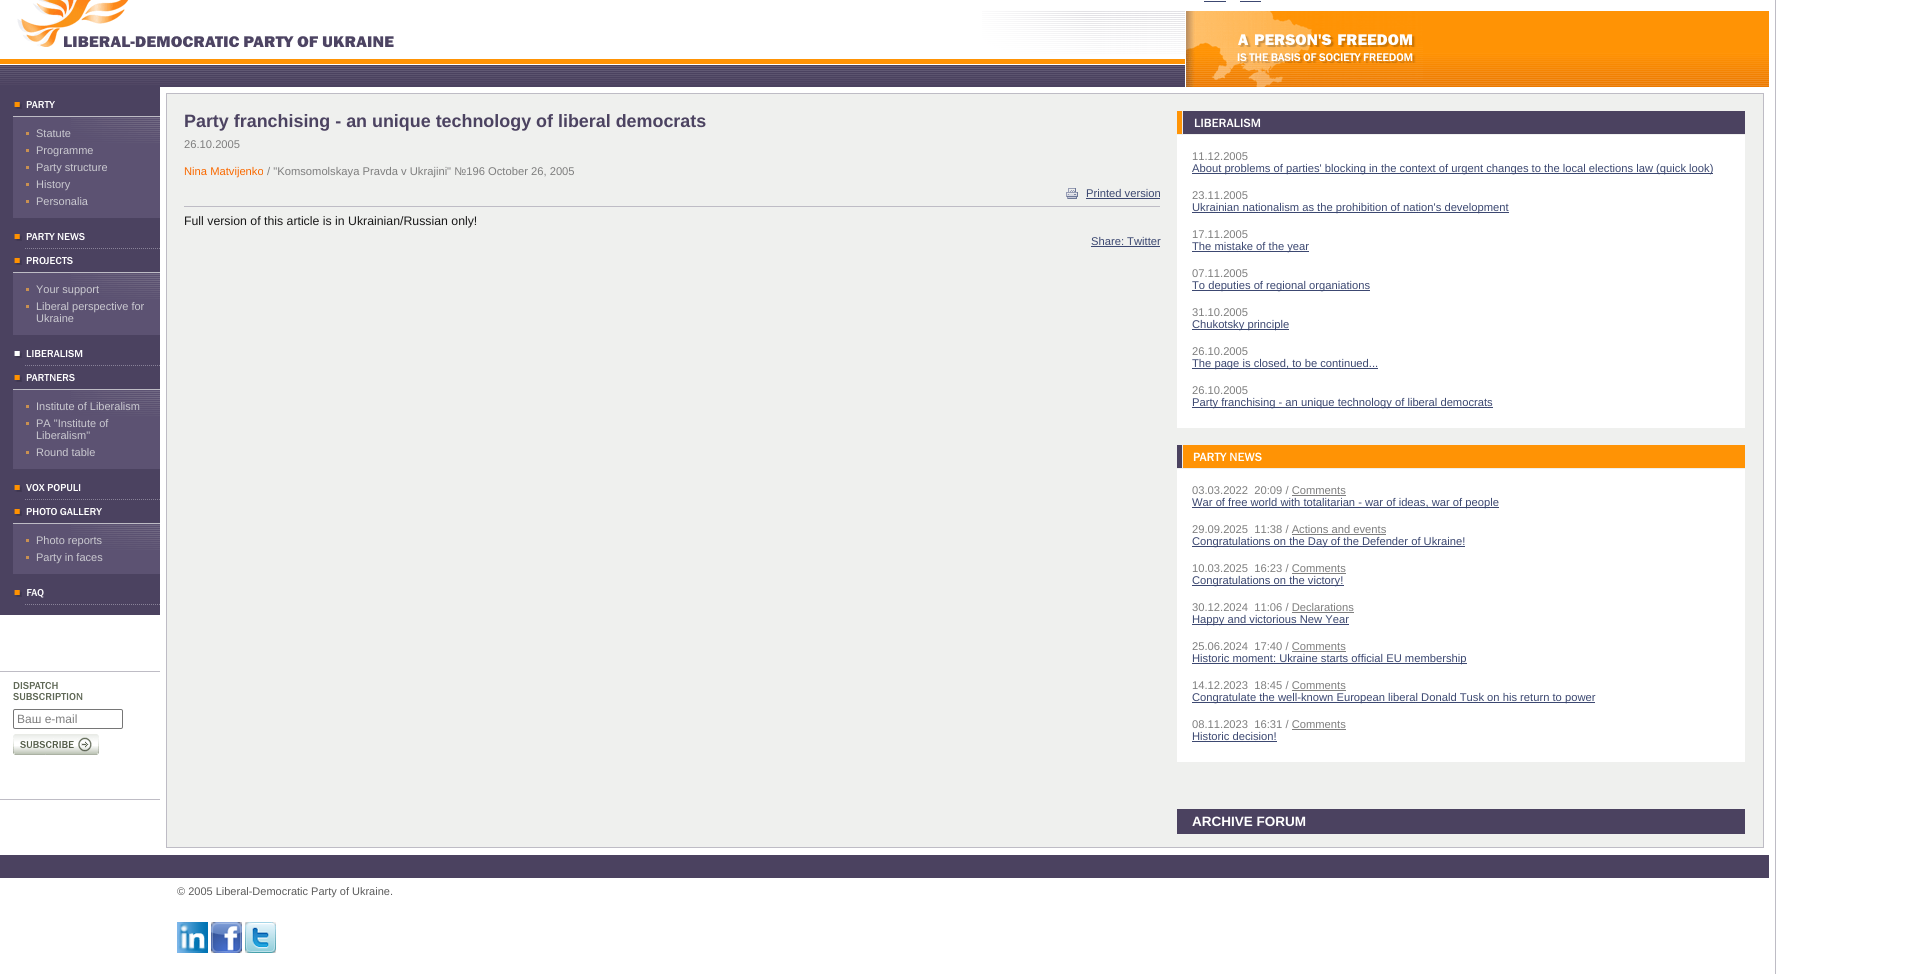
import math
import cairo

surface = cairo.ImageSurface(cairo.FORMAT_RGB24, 1910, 974)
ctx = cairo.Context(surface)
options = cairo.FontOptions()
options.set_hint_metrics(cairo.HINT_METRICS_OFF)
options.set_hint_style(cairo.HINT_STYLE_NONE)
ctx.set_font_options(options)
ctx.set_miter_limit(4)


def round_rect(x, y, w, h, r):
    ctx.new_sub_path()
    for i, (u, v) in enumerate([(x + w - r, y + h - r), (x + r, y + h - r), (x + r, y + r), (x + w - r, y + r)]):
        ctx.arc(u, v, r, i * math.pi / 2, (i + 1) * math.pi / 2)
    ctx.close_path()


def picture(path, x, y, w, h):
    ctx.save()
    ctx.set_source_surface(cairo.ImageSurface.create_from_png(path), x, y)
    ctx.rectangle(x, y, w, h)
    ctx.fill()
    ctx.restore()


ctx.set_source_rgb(1, 1, 1)
ctx.paint()
picture("img3.png", 64, 36, 330, 12)
picture("img1.png", 17, 0, 112, 47)
picture("img2.png", 982, 11, 203, 43)
ctx.set_source_rgb(1, 0.576, 0.02)
ctx.rectangle(0, 59, 1185, 5)
ctx.fill()
ctx.set_source_rgb(0.294, 0.259, 0.376)
ctx.rectangle(0, 65, 1185, 22)
ctx.fill()
picture("img4.png", 0, 66, 1185, 19)
ctx.set_source_rgb(0.235, 0.282, 0.443)
ctx.rectangle(1204, 1, 22, 1)
ctx.fill()
ctx.rectangle(1240, 1, 21, 1)
ctx.fill()
ctx.set_source_rgb(1, 0.576, 0.02)
ctx.rectangle(1423, 11, 346, 42)
ctx.fill()
picture("img5.png", 1423, 53, 346, 34)
picture("img6.png", 1186, 11, 237, 76)
ctx.set_source_rgb(0.745, 0.737, 0.773)
ctx.rectangle(1775, 0, 1, 974)
ctx.fill()
ctx.set_source_rgb(0.294, 0.259, 0.376)
ctx.rectangle(0, 87, 160, 528)
ctx.fill()
picture("img7.png", 14, 102, 8, 7)
picture("img8.png", 26, 101, 29, 7)
ctx.set_source_rgb(0.745, 0.737, 0.773)
ctx.rectangle(13, 116, 147, 1)
ctx.fill()
ctx.set_source_rgb(0.361, 0.322, 0.447)
ctx.rectangle(13, 117, 147, 101)
ctx.fill()
picture("img9.png", 71, 118, 89, 25)
ctx.set_source_rgb(0.788, 0.565, 0.318)
ctx.rectangle(26, 132, 3, 3)
ctx.fill()
ctx.select_font_face("Liberation Sans")
ctx.set_font_size(11)
ctx.set_source_rgb(0.792, 0.788, 0.816)
ctx.move_to(36, 137)
ctx.show_text("Statute")
ctx.set_source_rgb(0.788, 0.565, 0.318)
ctx.rectangle(26, 149, 3, 3)
ctx.fill()
ctx.set_source_rgb(0.792, 0.788, 0.816)
ctx.move_to(36, 154)
ctx.show_text("Programme")
ctx.set_source_rgb(0.788, 0.565, 0.318)
ctx.rectangle(26, 166, 3, 3)
ctx.fill()
ctx.set_source_rgb(0.792, 0.788, 0.816)
ctx.move_to(36, 171)
ctx.show_text("Party structure")
ctx.set_source_rgb(0.788, 0.565, 0.318)
ctx.rectangle(26, 183, 3, 3)
ctx.fill()
ctx.set_source_rgb(0.792, 0.788, 0.816)
ctx.move_to(36, 188)
ctx.show_text("History")
ctx.set_source_rgb(0.788, 0.565, 0.318)
ctx.rectangle(26, 200, 3, 3)
ctx.fill()
ctx.set_source_rgb(0.792, 0.788, 0.816)
ctx.move_to(36, 205)
ctx.show_text("Personalia")
picture("img7.png", 14, 234, 8, 7)
picture("img10.png", 26, 232, 59, 9)
picture("img11.png", 25, 248, 135, 1)
picture("img7.png", 14, 258, 8, 7)
picture("img12.png", 26, 256, 47, 9)
ctx.set_source_rgb(0.745, 0.737, 0.773)
ctx.rectangle(13, 272, 147, 1)
ctx.fill()
ctx.set_source_rgb(0.361, 0.322, 0.447)
ctx.rectangle(13, 273, 147, 62)
ctx.fill()
picture("img9.png", 71, 274, 89, 25)
ctx.set_source_rgb(0.788, 0.565, 0.318)
ctx.rectangle(26, 288, 3, 3)
ctx.fill()
ctx.set_source_rgb(0.792, 0.788, 0.816)
ctx.move_to(36, 293)
ctx.show_text("Your support")
ctx.set_source_rgb(0.788, 0.565, 0.318)
ctx.rectangle(26, 305, 3, 3)
ctx.fill()
ctx.set_source_rgb(0.792, 0.788, 0.816)
ctx.move_to(36, 310)
ctx.show_text("Liberal perspective for")
ctx.move_to(36, 322)
ctx.show_text("Ukraine")
picture("img13.png", 14, 351, 8, 7)
picture("img14.png", 26, 350, 57, 8)
picture("img11.png", 25, 365, 135, 1)
picture("img7.png", 14, 375, 8, 7)
picture("img15.png", 26, 373, 49, 9)
ctx.set_source_rgb(0.745, 0.737, 0.773)
ctx.rectangle(13, 389, 147, 1)
ctx.fill()
ctx.set_source_rgb(0.361, 0.322, 0.447)
ctx.rectangle(13, 390, 147, 79)
ctx.fill()
picture("img9.png", 71, 391, 89, 25)
ctx.set_source_rgb(0.788, 0.565, 0.318)
ctx.rectangle(26, 405, 3, 3)
ctx.fill()
ctx.set_source_rgb(0.792, 0.788, 0.816)
ctx.move_to(36, 410)
ctx.show_text("Institute of Liberalism")
ctx.set_source_rgb(0.788, 0.565, 0.318)
ctx.rectangle(26, 422, 3, 3)
ctx.fill()
ctx.set_source_rgb(0.792, 0.788, 0.816)
ctx.move_to(36, 427)
ctx.show_text("PA \"Institute of")
ctx.move_to(36, 439)
ctx.show_text("Liberalism\"")
ctx.set_source_rgb(0.788, 0.565, 0.318)
ctx.rectangle(26, 451, 3, 3)
ctx.fill()
ctx.set_source_rgb(0.792, 0.788, 0.816)
ctx.move_to(36, 456)
ctx.show_text("Round table")
picture("img7.png", 14, 485, 8, 7)
picture("img16.png", 26, 483, 55, 9)
picture("img11.png", 25, 499, 135, 1)
picture("img7.png", 14, 509, 8, 7)
picture("img17.png", 26, 507, 76, 9)
ctx.set_source_rgb(0.745, 0.737, 0.773)
ctx.rectangle(13, 523, 147, 1)
ctx.fill()
ctx.set_source_rgb(0.361, 0.322, 0.447)
ctx.rectangle(13, 524, 147, 50)
ctx.fill()
picture("img9.png", 71, 525, 89, 25)
ctx.set_source_rgb(0.788, 0.565, 0.318)
ctx.rectangle(26, 539, 3, 3)
ctx.fill()
ctx.set_source_rgb(0.792, 0.788, 0.816)
ctx.move_to(36, 544)
ctx.show_text("Photo reports")
ctx.set_source_rgb(0.788, 0.565, 0.318)
ctx.rectangle(26, 556, 3, 3)
ctx.fill()
ctx.set_source_rgb(0.792, 0.788, 0.816)
ctx.move_to(36, 561)
ctx.show_text("Party in faces")
picture("img7.png", 14, 590, 8, 7)
picture("img18.png", 27, 588, 17, 10)
picture("img11.png", 25, 604, 135, 1)
ctx.set_source_rgb(0.745, 0.737, 0.773)
ctx.rectangle(0, 671, 160, 1)
ctx.fill()
picture("img19.png", 13, 682, 70, 19)
round_rect(13.5, 709.5, 109, 19, 1.5)
ctx.set_source_rgb(0.463, 0.463, 0.463)
ctx.set_line_width(1)
ctx.stroke()
ctx.set_font_size(12)
ctx.set_source_rgb(0.494, 0.494, 0.494)
ctx.move_to(17, 723)
ctx.show_text("Ваш e-mail")
picture("img20.png", 13, 734, 86, 21)
ctx.set_source_rgb(0.745, 0.737, 0.773)
ctx.rectangle(0, 799, 160, 1)
ctx.fill()
ctx.set_source_rgb(0.937, 0.941, 0.933)
ctx.rectangle(167, 94, 1596, 753)
ctx.fill()
ctx.set_source_rgb(0.745, 0.737, 0.773)
ctx.rectangle(166, 93, 1598, 1)
ctx.fill()
ctx.rectangle(166, 847, 1011, 1)
ctx.fill()
ctx.rectangle(166, 93, 1, 755)
ctx.fill()
ctx.select_font_face("Liberation Sans", cairo.FONT_SLANT_NORMAL, cairo.FONT_WEIGHT_BOLD)
ctx.set_font_size(17.9)
ctx.set_source_rgb(0.298, 0.263, 0.38)
ctx.move_to(184, 127)
ctx.show_text("Party franchising - an unique technology of liberal democrats")
ctx.select_font_face("Liberation Sans")
ctx.set_font_size(11.2)
ctx.set_source_rgb(0.494, 0.494, 0.494)
ctx.move_to(184, 148)
ctx.show_text("26.10.2005")
ctx.set_source_rgb(0.976, 0.412, 0)
ctx.move_to(184, 175)
ctx.show_text("Nina Matvijenko")
ctx.set_source_rgb(0.494, 0.494, 0.494)
ctx.move_to(267, 175)
ctx.show_text("/ \"Komsomolskaya Pravda v Ukrajini\" №196 October 26, 2005")
picture("img21.png", 1066, 188, 12, 11)
ctx.set_source_rgb(0.235, 0.282, 0.443)
ctx.move_to(1086, 197)
ctx.show_text("Printed version")
ctx.rectangle(1086, 198, 74, 1)
ctx.fill()
ctx.set_source_rgb(0.745, 0.737, 0.773)
ctx.rectangle(184, 206, 976, 1)
ctx.fill()
ctx.set_font_size(12.3)
ctx.set_source_rgb(0.098, 0.098, 0.098)
ctx.move_to(184, 225)
ctx.show_text("Full version of this article is in Ukrainian/Russian only!")
ctx.set_font_size(11.2)
ctx.set_source_rgb(0.235, 0.282, 0.443)
ctx.move_to(1091, 245)
ctx.show_text("Share: Twitter")
ctx.rectangle(1091, 246, 69, 1)
ctx.fill()
ctx.set_source_rgb(0.745, 0.737, 0.773)
ctx.rectangle(1763, 93, 1, 755)
ctx.fill()
ctx.rectangle(1177, 847, 587, 1)
ctx.fill()
ctx.set_source_rgb(0.294, 0.259, 0.376)
ctx.rectangle(1183, 111, 562, 23)
ctx.fill()
picture("img22.png", 1177, 111, 84, 23)
ctx.set_source_rgb(1, 1, 1)
ctx.rectangle(1177, 135, 568, 293)
ctx.fill()
ctx.set_source_rgb(0.494, 0.494, 0.494)
ctx.move_to(1192, 160)
ctx.show_text("11.12.2005")
ctx.set_source_rgb(0.235, 0.282, 0.443)
ctx.rectangle(1192, 173, 521, 1)
ctx.fill()
ctx.move_to(1192, 172)
ctx.show_text("About problems of parties' blocking in the context of urgent changes to the local elections law (quick look)")
ctx.set_source_rgb(0.494, 0.494, 0.494)
ctx.move_to(1192, 199)
ctx.show_text("23.11.2005")
ctx.set_source_rgb(0.235, 0.282, 0.443)
ctx.rectangle(1192, 212, 317, 1)
ctx.fill()
ctx.move_to(1192, 211)
ctx.show_text("Ukrainian nationalism as the prohibition of nation's development")
ctx.set_source_rgb(0.494, 0.494, 0.494)
ctx.move_to(1192, 238)
ctx.show_text("17.11.2005")
ctx.set_source_rgb(0.235, 0.282, 0.443)
ctx.rectangle(1192, 251, 117, 1)
ctx.fill()
ctx.move_to(1192, 250)
ctx.show_text("The mistake of the year")
ctx.set_source_rgb(0.494, 0.494, 0.494)
ctx.move_to(1192, 277)
ctx.show_text("07.11.2005")
ctx.set_source_rgb(0.235, 0.282, 0.443)
ctx.rectangle(1192, 290, 178, 1)
ctx.fill()
ctx.move_to(1192, 289)
ctx.show_text("To deputies of regional organiations")
ctx.set_source_rgb(0.494, 0.494, 0.494)
ctx.move_to(1192, 316)
ctx.show_text("31.10.2005")
ctx.set_source_rgb(0.235, 0.282, 0.443)
ctx.rectangle(1192, 329, 97, 1)
ctx.fill()
ctx.move_to(1192, 328)
ctx.show_text("Chukotsky principle")
ctx.set_source_rgb(0.494, 0.494, 0.494)
ctx.move_to(1192, 355)
ctx.show_text("26.10.2005")
ctx.set_source_rgb(0.235, 0.282, 0.443)
ctx.rectangle(1192, 368, 186, 1)
ctx.fill()
ctx.move_to(1192, 367)
ctx.show_text("The page is closed, to be continued...")
ctx.set_source_rgb(0.494, 0.494, 0.494)
ctx.move_to(1192, 394)
ctx.show_text("26.10.2005")
ctx.set_source_rgb(0.235, 0.282, 0.443)
ctx.rectangle(1192, 407, 301, 1)
ctx.fill()
ctx.move_to(1192, 406)
ctx.show_text("Party franchising - an unique technology of liberal democrats")
ctx.set_source_rgb(1, 0.576, 0.02)
ctx.rectangle(1183, 445, 562, 23)
ctx.fill()
picture("img23.png", 1177, 445, 85, 23)
ctx.set_source_rgb(1, 1, 1)
ctx.rectangle(1177, 469, 568, 293)
ctx.fill()
ctx.set_source_rgb(0.494, 0.494, 0.494)
ctx.move_to(1192, 494)
ctx.show_text("03.03.2022  20:09 / Comments")
ctx.rectangle(1292, 495, 54, 1)
ctx.fill()
ctx.set_source_rgb(0.235, 0.282, 0.443)
ctx.rectangle(1192, 507, 307, 1)
ctx.fill()
ctx.move_to(1192, 506)
ctx.show_text("War of free world with totalitarian - war of ideas, war of people")
ctx.set_source_rgb(0.494, 0.494, 0.494)
ctx.move_to(1192, 533)
ctx.show_text("29.09.2025  11:38 / Actions and events")
ctx.rectangle(1292, 534, 94, 1)
ctx.fill()
ctx.set_source_rgb(0.235, 0.282, 0.443)
ctx.rectangle(1192, 546, 273, 1)
ctx.fill()
ctx.move_to(1192, 545)
ctx.show_text("Congratulations on the Day of the Defender of Ukraine!")
ctx.set_source_rgb(0.494, 0.494, 0.494)
ctx.move_to(1192, 572)
ctx.show_text("10.03.2025  16:23 / Comments")
ctx.rectangle(1292, 573, 54, 1)
ctx.fill()
ctx.set_source_rgb(0.235, 0.282, 0.443)
ctx.rectangle(1192, 585, 152, 1)
ctx.fill()
ctx.move_to(1192, 584)
ctx.show_text("Congratulations on the victory!")
ctx.set_source_rgb(0.494, 0.494, 0.494)
ctx.move_to(1192, 611)
ctx.show_text("30.12.2024  11:06 / Declarations")
ctx.rectangle(1292, 612, 62, 1)
ctx.fill()
ctx.set_source_rgb(0.235, 0.282, 0.443)
ctx.rectangle(1192, 624, 157, 1)
ctx.fill()
ctx.move_to(1192, 623)
ctx.show_text("Happy and victorious New Year")
ctx.set_source_rgb(0.494, 0.494, 0.494)
ctx.move_to(1192, 650)
ctx.show_text("25.06.2024  17:40 / Comments")
ctx.rectangle(1292, 651, 54, 1)
ctx.fill()
ctx.set_source_rgb(0.235, 0.282, 0.443)
ctx.rectangle(1192, 663, 275, 1)
ctx.fill()
ctx.move_to(1192, 662)
ctx.show_text("Historic moment: Ukraine starts official EU membership")
ctx.set_source_rgb(0.494, 0.494, 0.494)
ctx.move_to(1192, 689)
ctx.show_text("14.12.2023  18:45 / Comments")
ctx.rectangle(1292, 690, 54, 1)
ctx.fill()
ctx.set_source_rgb(0.235, 0.282, 0.443)
ctx.rectangle(1192, 702, 403, 1)
ctx.fill()
ctx.move_to(1192, 701)
ctx.show_text("Congratulate the well-known European liberal Donald Tusk on his return to power")
ctx.set_source_rgb(0.494, 0.494, 0.494)
ctx.move_to(1192, 728)
ctx.show_text("08.11.2023  16:31 / Comments")
ctx.rectangle(1292, 729, 54, 1)
ctx.fill()
ctx.set_source_rgb(0.235, 0.282, 0.443)
ctx.move_to(1192, 740)
ctx.show_text("Historic decision!")
ctx.rectangle(1192, 741, 85, 1)
ctx.fill()
ctx.set_source_rgb(0.294, 0.259, 0.376)
ctx.rectangle(1177, 809, 568, 25)
ctx.fill()
ctx.select_font_face("Liberation Sans", cairo.FONT_SLANT_NORMAL, cairo.FONT_WEIGHT_BOLD)
ctx.set_font_size(13.5)
ctx.set_source_rgb(1, 1, 1)
ctx.move_to(1192, 826)
ctx.show_text("ARCHIVE FORUM")
ctx.set_source_rgb(0.294, 0.259, 0.376)
ctx.rectangle(0, 855, 1769, 23)
ctx.fill()
ctx.select_font_face("Liberation Sans")
ctx.set_font_size(11)
ctx.set_source_rgb(0.357, 0.357, 0.357)
ctx.move_to(177, 895)
ctx.show_text("© 2005 Liberal-Democratic Party of Ukraine.")
picture("img24.png", 177, 922, 31, 31)
picture("img25.png", 211, 922, 31, 31)
picture("img26.png", 245, 922, 31, 31)
surface.write_to_png("page.png")
